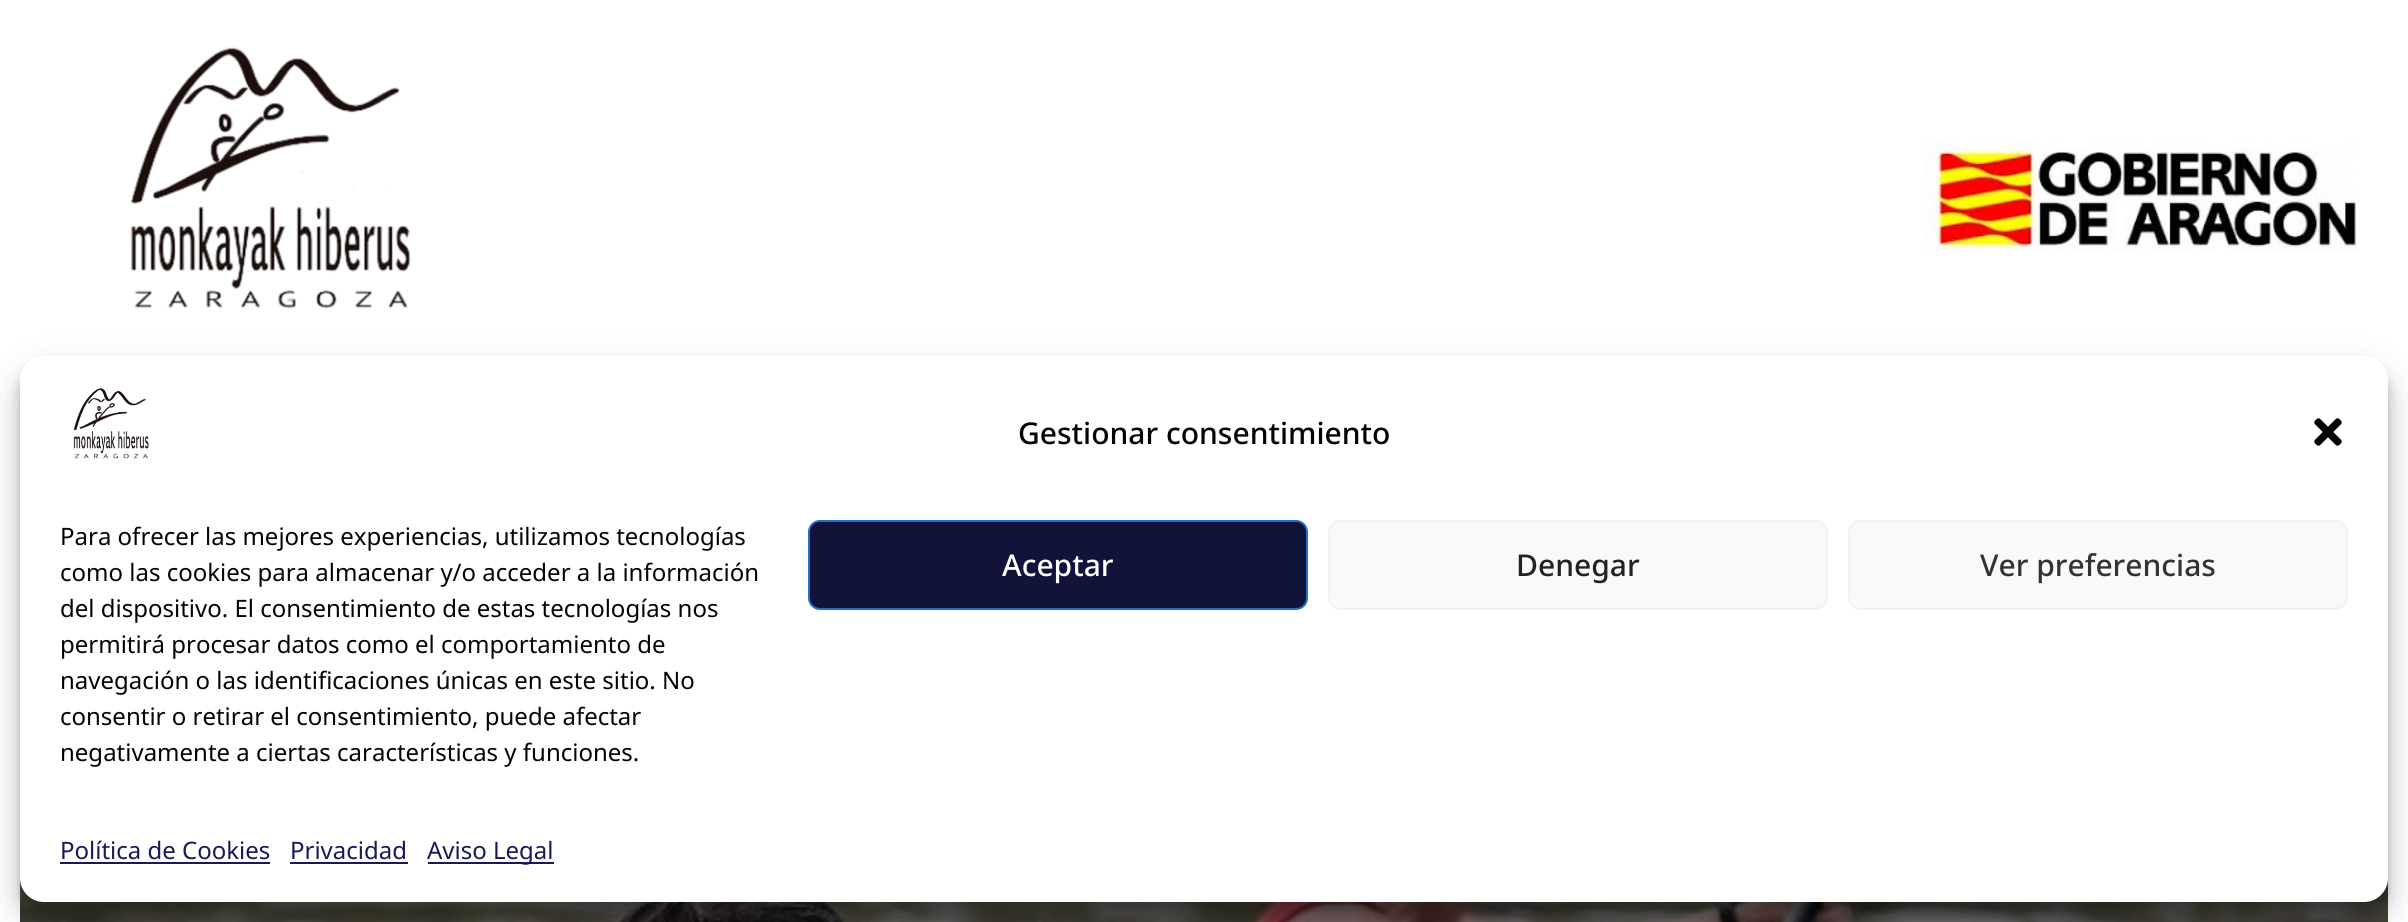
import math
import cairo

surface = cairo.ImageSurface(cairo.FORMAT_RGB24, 2408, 922)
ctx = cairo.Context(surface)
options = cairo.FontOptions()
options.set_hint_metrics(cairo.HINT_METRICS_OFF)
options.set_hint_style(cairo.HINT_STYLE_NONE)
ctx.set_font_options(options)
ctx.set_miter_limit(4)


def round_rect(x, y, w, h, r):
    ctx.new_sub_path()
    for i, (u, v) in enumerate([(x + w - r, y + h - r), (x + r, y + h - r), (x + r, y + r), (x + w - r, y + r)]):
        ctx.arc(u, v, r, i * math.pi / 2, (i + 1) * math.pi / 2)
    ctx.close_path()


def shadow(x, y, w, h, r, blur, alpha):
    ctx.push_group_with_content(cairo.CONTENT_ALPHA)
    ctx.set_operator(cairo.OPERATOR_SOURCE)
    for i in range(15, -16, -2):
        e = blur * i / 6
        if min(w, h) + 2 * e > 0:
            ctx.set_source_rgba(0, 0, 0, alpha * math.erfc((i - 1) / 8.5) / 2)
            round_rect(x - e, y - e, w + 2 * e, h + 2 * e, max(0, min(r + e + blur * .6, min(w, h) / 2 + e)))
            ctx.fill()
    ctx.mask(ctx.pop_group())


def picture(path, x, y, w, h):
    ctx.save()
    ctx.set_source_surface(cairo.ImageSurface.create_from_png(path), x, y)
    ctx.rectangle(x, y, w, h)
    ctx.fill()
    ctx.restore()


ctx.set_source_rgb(1, 1, 1)
ctx.paint()
picture("img1.png", 130, 47, 281, 262)
picture("img2.png", 1924, 140, 434, 111)
picture("img5.png", 20, 878, 2368, 44)
ctx.set_source_rgb(0, 0, 0)
shadow(20, 368, 2368, 546, 24, 6, 0.23)
shadow(20, 376, 2368, 546, 24, 20, 0.19)
ctx.set_source_rgb(1, 1, 1)
round_rect(20, 356, 2368, 546, 24)
ctx.fill()
picture("img3.png", 73, 388, 76, 71)
ctx.select_font_face("Noto Sans Medium")
ctx.set_font_size(30)
ctx.set_source_rgb(0.016, 0.016, 0.016)
ctx.move_to(1018, 444)
ctx.show_text("Gestionar consentimiento")
picture("img4.png", 2314, 418, 28, 28)
ctx.select_font_face("Noto Sans")
ctx.set_font_size(24)
ctx.move_to(60, 545)
ctx.show_text("Para ofrecer las mejores experiencias, utilizamos tecnologías")
ctx.move_to(60, 581)
ctx.show_text("como las cookies para almacenar y/o acceder a la información")
ctx.move_to(60, 617)
ctx.show_text("del dispositivo. El consentimiento de estas tecnologías nos")
ctx.move_to(60, 653)
ctx.show_text("permitirá procesar datos como el comportamiento de")
ctx.move_to(60, 689)
ctx.show_text("navegación o las identificaciones únicas en este sitio. No")
ctx.move_to(60, 725)
ctx.show_text("consentir o retirar el consentimiento, puede afectar")
ctx.move_to(60, 761)
ctx.show_text("negativamente a ciertas características y funciones.")
ctx.set_source_rgb(0.067, 0.075, 0.227)
round_rect(809, 521, 498, 88, 11)
ctx.fill_preserve()
ctx.set_source_rgb(0.118, 0.451, 0.745)
ctx.stroke()
ctx.select_font_face("Noto Sans Medium")
ctx.set_font_size(30)
ctx.set_source_rgb(1, 1, 1)
ctx.move_to(1002, 576)
ctx.show_text("Aceptar")
ctx.set_source_rgb(0.976, 0.976, 0.976)
round_rect(1329, 521, 498, 88, 11)
ctx.fill_preserve()
ctx.set_source_rgb(0.949, 0.949, 0.949)
ctx.stroke()
ctx.set_source_rgb(0.133, 0.133, 0.133)
ctx.move_to(1516, 576)
ctx.show_text("Denegar")
ctx.set_source_rgb(0.976, 0.976, 0.976)
round_rect(1849, 521, 498, 88, 11)
ctx.fill_preserve()
ctx.set_source_rgb(0.949, 0.949, 0.949)
ctx.stroke()
ctx.set_source_rgb(0.2, 0.2, 0.2)
ctx.move_to(1980, 576)
ctx.show_text("Ver preferencias")
ctx.select_font_face("Noto Sans")
ctx.set_font_size(24)
ctx.set_source_rgb(0.094, 0.094, 0.357)
ctx.move_to(60, 859)
ctx.show_text("Política de Cookies")
ctx.rectangle(60, 862, 210, 2)
ctx.fill()
ctx.move_to(290, 859)
ctx.show_text("Privacidad")
ctx.rectangle(290, 862, 118, 2)
ctx.fill()
ctx.rectangle(428, 862, 126, 2)
ctx.fill()
ctx.move_to(427, 859)
ctx.show_text("Aviso Legal")
surface.write_to_png("page.png")
